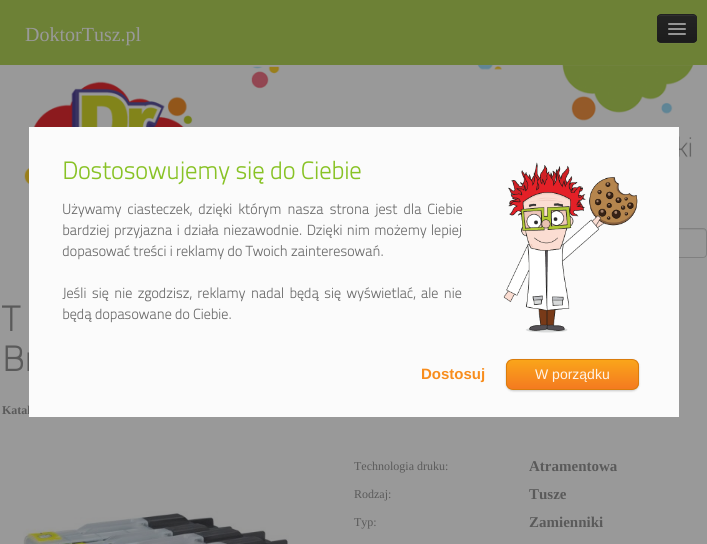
import math
import cairo

surface = cairo.ImageSurface(cairo.FORMAT_RGB24, 707, 544)
ctx = cairo.Context(surface)
options = cairo.FontOptions()
options.set_hint_metrics(cairo.HINT_METRICS_OFF)
options.set_hint_style(cairo.HINT_STYLE_NONE)
ctx.set_font_options(options)
ctx.set_miter_limit(4)


def spaced_text(x, y, s, letter, word):
    ctx.move_to(x, y)
    for ch in s:
        ctx.show_text(ch)
        ctx.rel_move_to(letter + word * (ch == ' '), 0)


def round_rect(x, y, w, h, r):
    ctx.new_sub_path()
    for i, (u, v) in enumerate([(x + w - r, y + h - r), (x + r, y + h - r), (x + r, y + r), (x + w - r, y + r)]):
        ctx.arc(u, v, r, i * math.pi / 2, (i + 1) * math.pi / 2)
    ctx.close_path()


def shadow(x, y, w, h, r, blur, alpha):
    ctx.push_group_with_content(cairo.CONTENT_ALPHA)
    ctx.set_operator(cairo.OPERATOR_SOURCE)
    for i in range(15, -16, -2):
        e = blur * i / 6
        if min(w, h) + 2 * e > 0:
            ctx.set_source_rgba(0, 0, 0, alpha * math.erfc((i - 1) / 8.5) / 2)
            round_rect(x - e, y - e, w + 2 * e, h + 2 * e, max(0, min(r + e + blur * .6, min(w, h) / 2 + e)))
            ctx.fill()
    ctx.mask(ctx.pop_group())


def picture(path, x, y, w, h):
    ctx.save()
    ctx.set_source_surface(cairo.ImageSurface.create_from_png(path), x, y)
    ctx.rectangle(x, y, w, h)
    ctx.fill()
    ctx.restore()


ctx.set_source_rgb(0.6, 0.6, 0.6)
ctx.paint()
ctx.set_source_rgb(0.427, 0.506, 0.212)
ctx.rectangle(0, 0, 707, 65)
ctx.fill()
ctx.select_font_face("Liberation Serif")
ctx.set_font_size(20)
ctx.set_source_rgb(0.6, 0.6, 0.6)
ctx.move_to(25, 41)
ctx.show_text("DoktorTusz.pl")
ctx.set_source_rgb(0.439, 0.514, 0.243)
ctx.new_path()
ctx.move_to(657, 39)
ctx.curve_to(657, 45, 662, 44, 666, 44)
ctx.line_to(688, 44)
ctx.curve_to(692, 44, 697, 45, 697, 39)
ctx.curve_to(697, 41, 695, 43, 693, 43)
ctx.line_to(661, 43)
ctx.curve_to(659, 43, 657, 41, 657, 39)
ctx.close_path()
ctx.fill()
ctx.set_source_rgb(0.129, 0.129, 0.129)
round_rect(657, 14, 40, 29, 4)
ctx.fill()
ctx.save()
round_rect(657, 14, 40, 29, 4)
ctx.clip()
gradient = cairo.LinearGradient(677, 15, 677, 42)
gradient.add_color_stop_rgba(0, 0.141, 0.141, 0.141, 1)
gradient.add_color_stop_rgba(1, 0.11, 0.11, 0.11, 1)
ctx.set_source(gradient)
ctx.rectangle(657, 15, 40, 27)
ctx.fill()
ctx.restore()
ctx.set_source_rgb(0.188, 0.188, 0.188)
ctx.new_path()
ctx.move_to(661, 16)
ctx.line_to(693, 16)
ctx.curve_to(695, 16, 696, 17, 696, 19)
ctx.curve_to(696, 14, 692, 15, 687.5, 15)
ctx.line_to(666.5, 15)
ctx.curve_to(662, 15, 658, 14, 658, 19)
ctx.curve_to(658, 17, 659, 16, 661, 16)
ctx.close_path()
ctx.fill()
ctx.new_path()
ctx.move_to(695.5, 41.5)
ctx.curve_to(695, 42, 694, 42.5, 693, 42.5)
ctx.line_to(661, 42.5)
ctx.curve_to(660, 42.5, 659, 42, 658.5, 41.5)
ctx.set_source_rgba(0.102, 0.102, 0.102, 0.25)
ctx.set_line_width(1)
ctx.stroke()
ctx.set_source_rgb(0.58, 0.58, 0.58)
round_rect(668, 23, 18, 2, 1)
ctx.fill()
round_rect(668, 28, 18, 2, 1)
ctx.fill()
round_rect(668, 33, 18, 2, 1)
ctx.fill()
picture("img2.png", 0, 65, 707, 141)
ctx.set_source_rgb(0.565, 0.565, 0.565)
ctx.new_path()
ctx.move_to(491, 230)
ctx.line_to(703, 230)
ctx.curve_to(705, 230, 706, 231, 706, 233)
ctx.line_to(706, 232)
ctx.curve_to(706, 230, 705, 229, 703, 229)
ctx.line_to(491, 229)
ctx.curve_to(489, 229, 488, 230, 488, 232)
ctx.line_to(488, 233)
ctx.curve_to(488, 231, 489, 230, 491, 230)
ctx.close_path()
ctx.fill()
round_rect(487.5, 228.5, 219, 29, 3.5)
ctx.set_source_rgb(0.502, 0.502, 0.502)
ctx.stroke()
ctx.select_font_face("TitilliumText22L", cairo.FONT_SLANT_NORMAL, cairo.FONT_WEIGHT_BOLD)
ctx.set_font_size(35)
ctx.set_source_rgb(0.353, 0.353, 0.353)
ctx.move_to(2, 371)
ctx.show_text("Br")
ctx.select_font_face("Liberation Serif", cairo.FONT_SLANT_NORMAL, cairo.FONT_WEIGHT_BOLD)
ctx.set_font_size(12)
ctx.move_to(2, 414)
ctx.show_text("Katal")
ctx.set_source_rgb(0.984, 0.984, 0.984)
ctx.rectangle(29, 127, 650, 290)
ctx.fill()
ctx.select_font_face("TitilliumText22L", cairo.FONT_SLANT_NORMAL, cairo.FONT_WEIGHT_BOLD)
ctx.set_font_size(24)
ctx.set_source_rgb(0.533, 0.761, 0.145)
ctx.move_to(62, 179)
ctx.show_text("Dostosowujemy się do Ciebie")
ctx.set_font_size(14)
ctx.set_source_rgb(0.42, 0.42, 0.42)
spaced_text(62, 214, "Używamy ciasteczek, dzięki którym nasza strona jest dla Ciebie", 0, 2.75)
spaced_text(62, 235, "bardziej przyjazna i działa niezawodnie. Dzięki nim możemy lepiej", 0, 1)
ctx.move_to(62, 256)
ctx.show_text("dopasować treści i reklamy do Twoich zainteresowań.")
spaced_text(62, 298, "Jeśli się nie zgodzisz, reklamy nadal będą się wyświetlać, ale nie", 0, 2.1)
ctx.move_to(62, 319)
ctx.show_text("będą dopasowane do Ciebie.")
picture("img1.png", 503, 162, 135, 171)
ctx.select_font_face("Liberation Sans", cairo.FONT_SLANT_NORMAL, cairo.FONT_WEIGHT_BOLD)
ctx.set_font_size(15)
ctx.set_source_rgb(0.969, 0.553, 0.114)
ctx.move_to(421, 379)
ctx.show_text("Dostosuj")
ctx.set_source_rgb(0, 0, 0)
shadow(506, 360, 133, 31, 7, 1, 0.2)
ctx.save()
round_rect(506, 359, 133, 31, 7)
ctx.clip()
gradient = cairo.LinearGradient(507, 360, 507, 389)
gradient.add_color_stop_rgba(0, 0.98, 0.647, 0.102, 1)
gradient.add_color_stop_rgba(1, 0.957, 0.478, 0.125, 1)
ctx.set_source(gradient)
ctx.rectangle(506, 360, 133, 29)
ctx.fill()
ctx.restore()
round_rect(506.5, 359.5, 132, 30, 6.5)
ctx.set_source_rgb(0.855, 0.486, 0.047)
ctx.stroke()
ctx.select_font_face("Liberation Sans")
ctx.set_font_size(14)
ctx.set_source_rgb(0.996, 0.957, 0.914)
ctx.move_to(535, 379)
ctx.show_text("W porządku")
ctx.select_font_face("TitilliumText22L", cairo.FONT_SLANT_NORMAL, cairo.FONT_WEIGHT_BOLD)
ctx.set_font_size(35)
ctx.set_source_rgb(0.353, 0.353, 0.353)
ctx.move_to(2, 331)
ctx.show_text("T")
picture("img3.png", 23, 511, 266, 33)
ctx.select_font_face("Liberation Serif")
ctx.set_font_size(12)
ctx.move_to(354, 470)
ctx.show_text("Technologia druku:")
ctx.select_font_face("Liberation Serif", cairo.FONT_SLANT_NORMAL, cairo.FONT_WEIGHT_BOLD)
ctx.set_font_size(15)
ctx.move_to(529, 471)
ctx.show_text("Atramentowa")
ctx.select_font_face("Liberation Serif")
ctx.set_font_size(12)
ctx.move_to(354, 498)
ctx.show_text("Rodzaj:")
ctx.select_font_face("Liberation Serif", cairo.FONT_SLANT_NORMAL, cairo.FONT_WEIGHT_BOLD)
ctx.set_font_size(15)
ctx.move_to(529, 499)
ctx.show_text("Tusze")
ctx.select_font_face("Liberation Serif")
ctx.set_font_size(12)
ctx.move_to(354, 526)
ctx.show_text("Typ:")
ctx.select_font_face("Liberation Serif", cairo.FONT_SLANT_NORMAL, cairo.FONT_WEIGHT_BOLD)
ctx.set_font_size(15)
ctx.move_to(529, 527)
ctx.show_text("Zamienniki")
surface.write_to_png("page.png")
